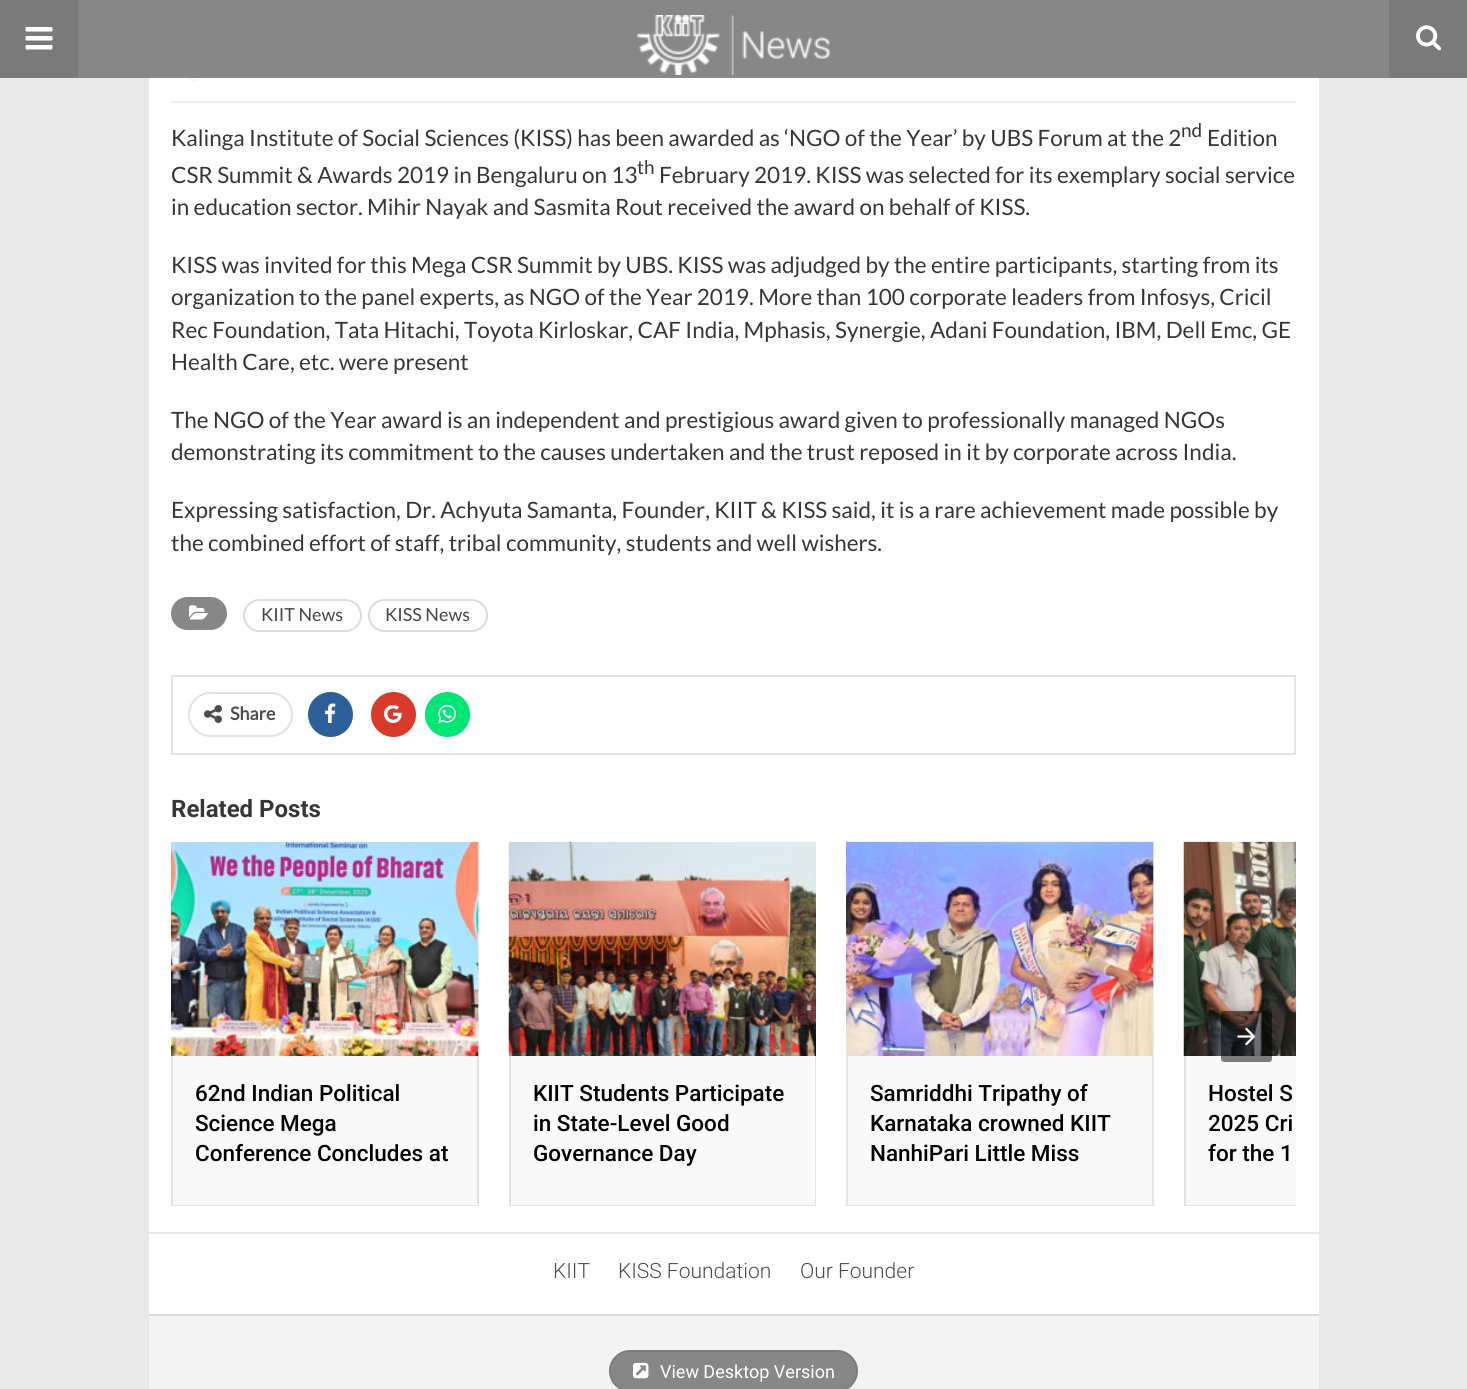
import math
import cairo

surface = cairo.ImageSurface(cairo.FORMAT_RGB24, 1467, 1389)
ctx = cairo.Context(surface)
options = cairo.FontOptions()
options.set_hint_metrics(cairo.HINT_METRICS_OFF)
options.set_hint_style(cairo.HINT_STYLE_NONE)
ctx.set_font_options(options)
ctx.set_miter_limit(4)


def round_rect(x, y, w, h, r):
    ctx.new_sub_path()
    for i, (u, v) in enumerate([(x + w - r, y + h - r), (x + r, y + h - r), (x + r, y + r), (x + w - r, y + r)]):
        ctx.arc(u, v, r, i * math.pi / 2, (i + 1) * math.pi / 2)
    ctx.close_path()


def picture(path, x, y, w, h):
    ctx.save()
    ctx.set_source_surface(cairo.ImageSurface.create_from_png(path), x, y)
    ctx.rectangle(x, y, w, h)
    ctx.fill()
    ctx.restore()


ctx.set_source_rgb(0.91, 0.91, 0.91)
ctx.paint()
ctx.set_source_rgb(1, 1, 1)
ctx.rectangle(149, 78, 1170, 1154)
ctx.fill()
ctx.set_source_rgb(0.529, 0.529, 0.529)
ctx.rectangle(78, 0, 1311, 78)
ctx.fill()
ctx.set_source_rgb(0.478, 0.478, 0.478)
ctx.rectangle(0, 0, 78, 78)
ctx.fill()
picture("img1.png", 25, 27, 28, 23)
picture("img2.png", 637, 15, 193, 60)
ctx.rectangle(1389, 0, 78, 78)
ctx.fill()
picture("img3.png", 1416, 25, 25, 26)
ctx.set_source_rgb(0.933, 0.933, 0.933)
ctx.rectangle(171, 101, 1125, 2)
ctx.fill()
picture("img4.png", 178, 78, 25, 4)
ctx.select_font_face("Lato")
ctx.set_font_size(22.5)
ctx.set_source_rgb(0.212, 0.212, 0.212)
ctx.move_to(171, 146)
ctx.show_text("Kalinga Institute of Social Sciences (KISS) has been awarded as ‘NGO of the Year’ by UBS Forum at the 2")
ctx.set_font_size(19)
ctx.move_to(1181, 137)
ctx.show_text("nd")
ctx.set_font_size(22.5)
ctx.move_to(1207, 146)
ctx.show_text("Edition")
ctx.move_to(171, 183)
ctx.show_text("CSR Summit & Awards 2019 in Bengaluru on 13")
ctx.set_font_size(19)
ctx.move_to(637, 174)
ctx.show_text("th")
ctx.set_font_size(22.5)
ctx.move_to(659, 183)
ctx.show_text("February 2019. KISS was selected for its exemplary social service")
ctx.move_to(171, 215)
ctx.show_text("in education sector. Mihir Nayak and Sasmita Rout received the award on behalf of KISS.")
ctx.move_to(171, 273)
ctx.show_text("KISS was invited for this Mega CSR Summit by UBS. KISS was adjudged by the entire participants, starting from its")
ctx.move_to(171, 305)
ctx.show_text("organization to the panel experts, as NGO of the Year 2019. More than 100 corporate leaders from Infosys, Cricil")
ctx.move_to(171, 338)
ctx.show_text("Rec Foundation, Tata Hitachi, Toyota Kirloskar, CAF India, Mphasis, Synergie, Adani Foundation, IBM, Dell Emc, GE")
ctx.move_to(171, 370)
ctx.show_text("Health Care, etc. were present")
ctx.move_to(171, 428)
ctx.show_text("The NGO of the Year award is an independent and prestigious award given to professionally managed NGOs")
ctx.move_to(171, 460)
ctx.show_text("demonstrating its commitment to the causes undertaken and the trust reposed in it by corporate across India.")
ctx.move_to(171, 518)
ctx.show_text("Expressing satisfaction, Dr. Achyuta Samanta, Founder, KIIT & KISS said, it is a rare achievement made possible by")
ctx.move_to(171, 551)
ctx.show_text("the combined effort of staff, tribal community, students and well wishers.")
ctx.set_source_rgb(0.529, 0.529, 0.529)
round_rect(171, 597, 56, 33, 16.5)
ctx.fill()
picture("img5.png", 189, 605, 19, 15)
round_rect(244, 600, 117, 31, 15.5)
ctx.set_source_rgb(0.863, 0.863, 0.863)
ctx.stroke()
ctx.set_font_size(18)
ctx.set_source_rgb(0.275, 0.275, 0.275)
ctx.move_to(261, 621)
ctx.show_text("KIIT News")
round_rect(369, 600, 118, 31, 15.5)
ctx.set_source_rgb(0.863, 0.863, 0.863)
ctx.stroke()
ctx.set_source_rgb(0.275, 0.275, 0.275)
ctx.move_to(385, 621)
ctx.show_text("KISS News")
ctx.rectangle(172, 676, 1123, 78)
ctx.set_source_rgb(0.886, 0.886, 0.886)
ctx.stroke()
round_rect(189, 693, 103, 43, 21.5)
ctx.stroke()
picture("img6.png", 204, 705, 18, 18)
ctx.select_font_face("Lato", cairo.FONT_SLANT_NORMAL, cairo.FONT_WEIGHT_BOLD)
ctx.set_source_rgb(0.302, 0.302, 0.302)
ctx.move_to(230, 720)
ctx.show_text("Share")
ctx.set_source_rgb(0.176, 0.373, 0.604)
ctx.new_path()
ctx.arc(330.5, 714.5, 22.5, 0, 2 * math.pi)
ctx.fill()
picture("img7.png", 325, 703, 11, 20)
ctx.set_source_rgb(0.851, 0.231, 0.169)
ctx.arc(393.5, 714.5, 22.5, 0, 2 * math.pi)
ctx.fill()
picture("img8.png", 384, 705, 18, 18)
ctx.set_source_rgb(0, 0.902, 0.463)
ctx.arc(447.5, 714.5, 22.5, 0, 2 * math.pi)
ctx.fill()
picture("img9.png", 438, 704, 18, 19)
ctx.select_font_face("Roboto", cairo.FONT_SLANT_NORMAL, cairo.FONT_WEIGHT_BOLD)
ctx.set_font_size(24)
ctx.set_source_rgb(0.212, 0.212, 0.212)
ctx.move_to(171, 817)
ctx.show_text("Related Posts")
picture("img14.png", 1183, 841, 113, 215)
ctx.set_source_rgb(0.973, 0.973, 0.973)
ctx.rectangle(1186, 1056, 110, 149)
ctx.fill()
ctx.set_source_rgba(0, 0, 0, 0.5)
round_rect(1221, 1011, 51, 51, 3)
ctx.fill()
picture("img10.png", 1237, 1027, 19, 19)
ctx.set_source_rgb(0.933, 0.933, 0.933)
ctx.rectangle(478, 842, 1, 214)
ctx.fill()
picture("img11.png", 171, 841, 308, 215)
ctx.set_source_rgb(0.973, 0.973, 0.973)
ctx.rectangle(173, 1056, 304, 149)
ctx.fill()
ctx.set_source_rgb(0.886, 0.886, 0.886)
ctx.rectangle(477, 1056, 2, 150)
ctx.fill()
ctx.rectangle(171, 1205, 308, 1)
ctx.fill()
ctx.rectangle(171, 1056, 2, 150)
ctx.fill()
ctx.select_font_face("Roboto Medium")
ctx.set_font_size(22.5)
ctx.set_source_rgb(0, 0, 0)
ctx.move_to(195, 1101)
ctx.show_text("62nd Indian Political")
ctx.move_to(195, 1131)
ctx.show_text("Science Mega")
ctx.move_to(195, 1161)
ctx.show_text("Conference Concludes at")
picture("img12.png", 508, 841, 308, 215)
ctx.set_source_rgb(0.973, 0.973, 0.973)
ctx.rectangle(511, 1056, 304, 149)
ctx.fill()
ctx.set_source_rgb(0.886, 0.886, 0.886)
ctx.rectangle(815, 1056, 1, 150)
ctx.fill()
ctx.rectangle(509, 1205, 307, 1)
ctx.fill()
ctx.rectangle(509, 1056, 2, 150)
ctx.fill()
ctx.set_source_rgb(0, 0, 0)
ctx.move_to(533, 1101)
ctx.show_text("KIIT Students Participate")
ctx.move_to(533, 1131)
ctx.show_text("in State-Level Good")
ctx.move_to(533, 1161)
ctx.show_text("Governance Day")
ctx.set_source_rgb(0.933, 0.933, 0.933)
ctx.rectangle(1153, 842, 1, 214)
ctx.fill()
picture("img13.png", 846, 841, 308, 215)
ctx.set_source_rgb(0.973, 0.973, 0.973)
ctx.rectangle(848, 1056, 304, 149)
ctx.fill()
ctx.set_source_rgb(0.886, 0.886, 0.886)
ctx.rectangle(1152, 1056, 2, 150)
ctx.fill()
ctx.rectangle(846, 1205, 308, 1)
ctx.fill()
ctx.rectangle(846, 1056, 2, 150)
ctx.fill()
ctx.set_source_rgb(0, 0, 0)
ctx.move_to(870, 1101)
ctx.show_text("Samriddhi Tripathy of")
ctx.move_to(870, 1131)
ctx.show_text("Karnataka crowned KIIT")
ctx.move_to(870, 1161)
ctx.show_text("NanhiPari Little Miss")
ctx.set_source_rgb(0.886, 0.886, 0.886)
ctx.rectangle(1184, 1205, 112, 1)
ctx.fill()
ctx.rectangle(1184, 1056, 2, 150)
ctx.fill()
ctx.set_source_rgb(0, 0, 0)
ctx.move_to(1208, 1101)
ctx.show_text("Hostel S")
ctx.move_to(1208, 1131)
ctx.show_text("2025 Cri")
ctx.move_to(1208, 1161)
ctx.show_text("for the 1")
ctx.set_source_rgb(0.953, 0.953, 0.953)
ctx.rectangle(149, 1316, 1170, 73)
ctx.fill()
ctx.set_source_rgb(1, 1, 1)
ctx.rectangle(149, 1234, 1170, 80)
ctx.fill()
ctx.select_font_face("Roboto Light")
ctx.set_font_size(21)
ctx.set_source_rgb(0.302, 0.302, 0.302)
ctx.move_to(553, 1278)
ctx.show_text("KIIT")
ctx.move_to(618, 1278)
ctx.show_text("KISS Foundation")
ctx.move_to(800, 1278)
ctx.show_text("Our Founder")
ctx.set_source_rgb(0.859, 0.859, 0.859)
ctx.rectangle(149, 1314, 1170, 2)
ctx.fill()
ctx.set_source_rgb(0.529, 0.529, 0.529)
round_rect(609, 1350, 249, 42, 21)
ctx.fill()
round_rect(610, 1351, 247, 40, 20)
ctx.set_source_rgba(0, 0, 0, 0.08)
ctx.stroke()
picture("img15.png", 633, 1362, 16, 17)
ctx.select_font_face("Roboto")
ctx.set_font_size(18)
ctx.set_source_rgb(1, 1, 1)
ctx.move_to(660, 1378)
ctx.show_text("View Desktop Version")
surface.write_to_png("page.png")
